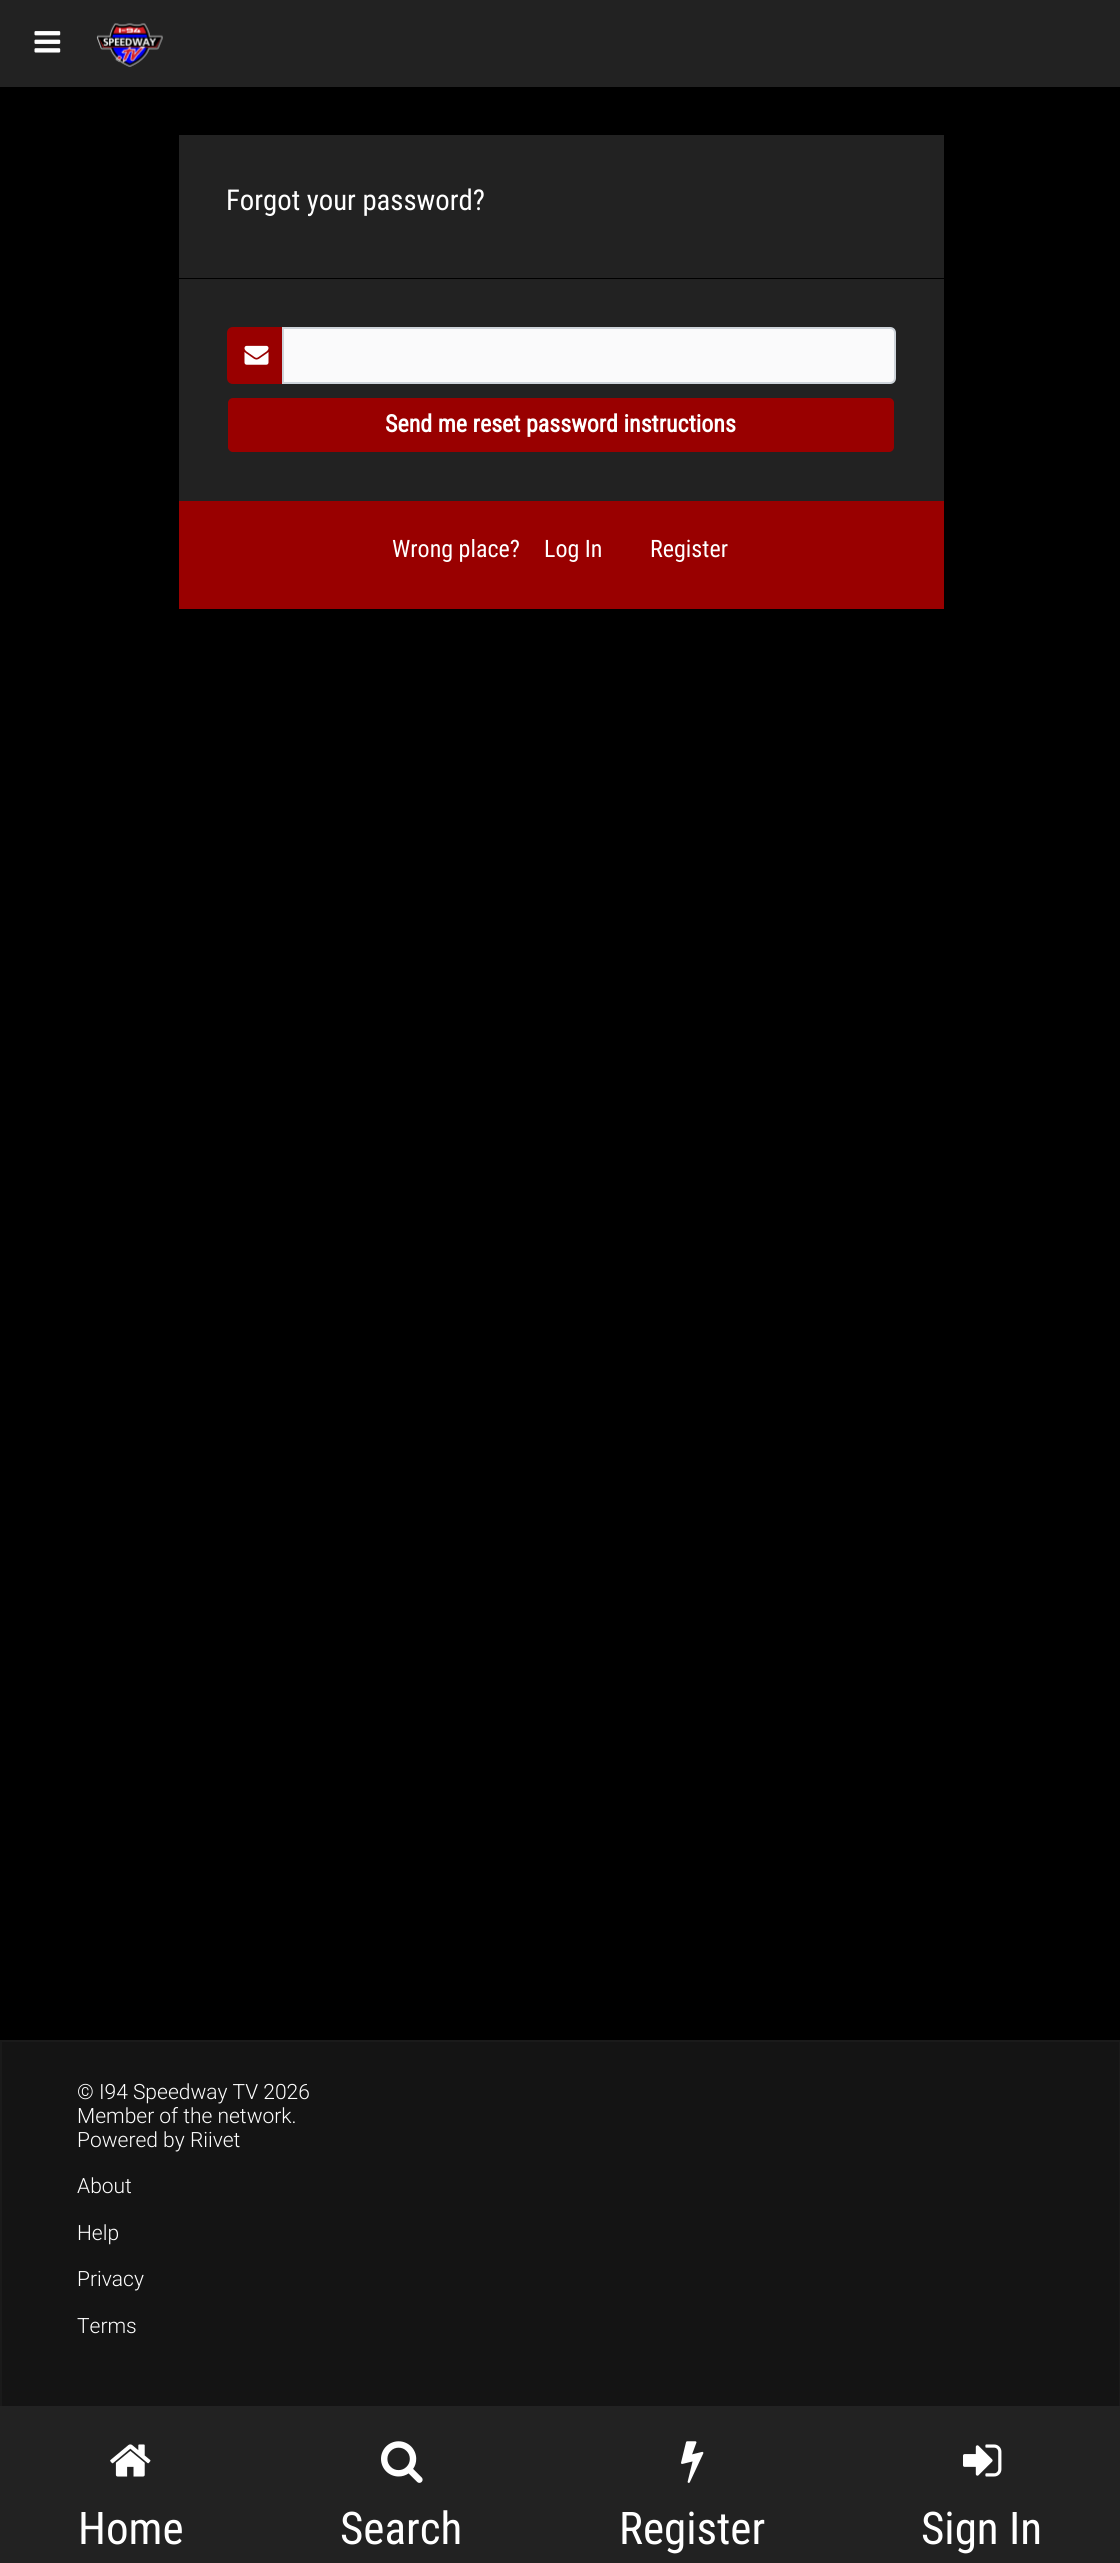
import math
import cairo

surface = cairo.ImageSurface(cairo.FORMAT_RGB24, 1120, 2563)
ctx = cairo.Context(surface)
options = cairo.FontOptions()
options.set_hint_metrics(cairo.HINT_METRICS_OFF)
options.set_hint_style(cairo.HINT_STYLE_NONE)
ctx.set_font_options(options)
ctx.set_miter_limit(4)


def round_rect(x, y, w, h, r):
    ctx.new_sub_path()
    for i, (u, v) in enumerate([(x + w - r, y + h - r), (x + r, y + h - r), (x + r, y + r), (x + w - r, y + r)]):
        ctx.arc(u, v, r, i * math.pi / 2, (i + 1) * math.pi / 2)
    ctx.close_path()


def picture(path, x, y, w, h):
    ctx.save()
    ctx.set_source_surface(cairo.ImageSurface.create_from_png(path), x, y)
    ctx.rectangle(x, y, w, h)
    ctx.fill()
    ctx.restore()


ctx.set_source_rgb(0, 0, 0)
ctx.paint()
ctx.set_source_rgb(0.133, 0.133, 0.133)
ctx.rectangle(0, 0, 1120, 87)
ctx.fill()
picture("img1.png", 34, 31, 27, 22)
picture("img2.png", 96, 23, 67, 44)
ctx.rectangle(179, 135, 765, 143)
ctx.fill()
ctx.select_font_face("Roboto Condensed")
ctx.set_font_size(28.75)
ctx.set_source_rgb(1, 1, 1)
ctx.move_to(226, 210)
ctx.show_text("Forgot your password?")
ctx.set_source_rgb(0.133, 0.133, 0.133)
ctx.rectangle(179, 279, 765, 222)
ctx.fill()
ctx.set_source_rgb(0.6, 0, 0)
ctx.new_path()
ctx.move_to(233, 327)
ctx.line_to(284, 327)
ctx.line_to(284, 384)
ctx.line_to(233, 384)
ctx.curve_to(229.5, 384, 227, 381.5, 227, 378)
ctx.line_to(227, 333)
ctx.curve_to(227, 329.5, 229.5, 327, 233, 327)
ctx.close_path()
ctx.fill()
picture("img3.png", 244, 345, 25, 20)
ctx.set_source_rgb(0.98, 0.98, 0.984)
ctx.new_path()
ctx.move_to(283, 328)
ctx.line_to(890, 328)
ctx.curve_to(893, 328, 895, 330, 895, 333)
ctx.line_to(895, 378)
ctx.curve_to(895, 381, 893, 383, 890, 383)
ctx.line_to(283, 383)
ctx.close_path()
ctx.fill_preserve()
ctx.set_source_rgb(0.808, 0.831, 0.855)
ctx.stroke()
ctx.set_source_rgb(0.6, 0, 0)
round_rect(228, 398, 666, 54, 5)
ctx.fill()
ctx.select_font_face("Roboto Condensed", cairo.FONT_SLANT_NORMAL, cairo.FONT_WEIGHT_BOLD)
ctx.set_font_size(24)
ctx.set_source_rgb(1, 1, 1)
ctx.move_to(385, 432)
ctx.show_text("Send me reset password instructions")
ctx.set_source_rgb(0.6, 0, 0)
ctx.rectangle(179, 501, 765, 108)
ctx.fill()
ctx.select_font_face("Roboto Condensed")
ctx.set_source_rgb(1, 1, 1)
ctx.move_to(392, 557)
ctx.show_text("Wrong place?")
ctx.move_to(544, 557)
ctx.show_text("Log In")
ctx.move_to(650, 557)
ctx.show_text("Register")
ctx.set_source_rgb(0.082, 0.082, 0.082)
ctx.rectangle(2, 2042, 1117, 364)
ctx.fill()
ctx.rectangle(1, 2041, 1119, 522)
ctx.set_source_rgb(0.102, 0.102, 0.102)
ctx.stroke()
ctx.select_font_face("Roboto Light")
ctx.set_font_size(21)
ctx.set_source_rgb(1, 1, 1)
ctx.move_to(77, 2099)
ctx.show_text("© I94 Speedway TV 2026")
ctx.move_to(77, 2123)
ctx.show_text("Member of the network.")
ctx.move_to(77, 2147)
ctx.show_text("Powered by Riivet")
ctx.move_to(77, 2193)
ctx.show_text("About")
ctx.move_to(77, 2240)
ctx.show_text("Help")
ctx.move_to(77, 2286)
ctx.show_text("Privacy")
ctx.move_to(77, 2333)
ctx.show_text("Terms")
ctx.set_source_rgb(0.133, 0.133, 0.133)
ctx.rectangle(0, 2406, 1120, 157)
ctx.fill()
picture("img4.png", 110, 2444, 41, 33)
ctx.select_font_face("Roboto Condensed")
ctx.set_font_size(45)
ctx.set_source_rgb(1, 1, 1)
ctx.move_to(78, 2544)
ctx.show_text("Home")
picture("img5.png", 381, 2441, 42, 42)
ctx.move_to(340, 2544)
ctx.show_text("Search")
picture("img6.png", 681, 2441, 23, 42)
ctx.move_to(619, 2544)
ctx.show_text("Register")
picture("img7.png", 963, 2444, 39, 33)
ctx.move_to(921, 2544)
ctx.show_text("Sign In")
surface.write_to_png("page.png")
